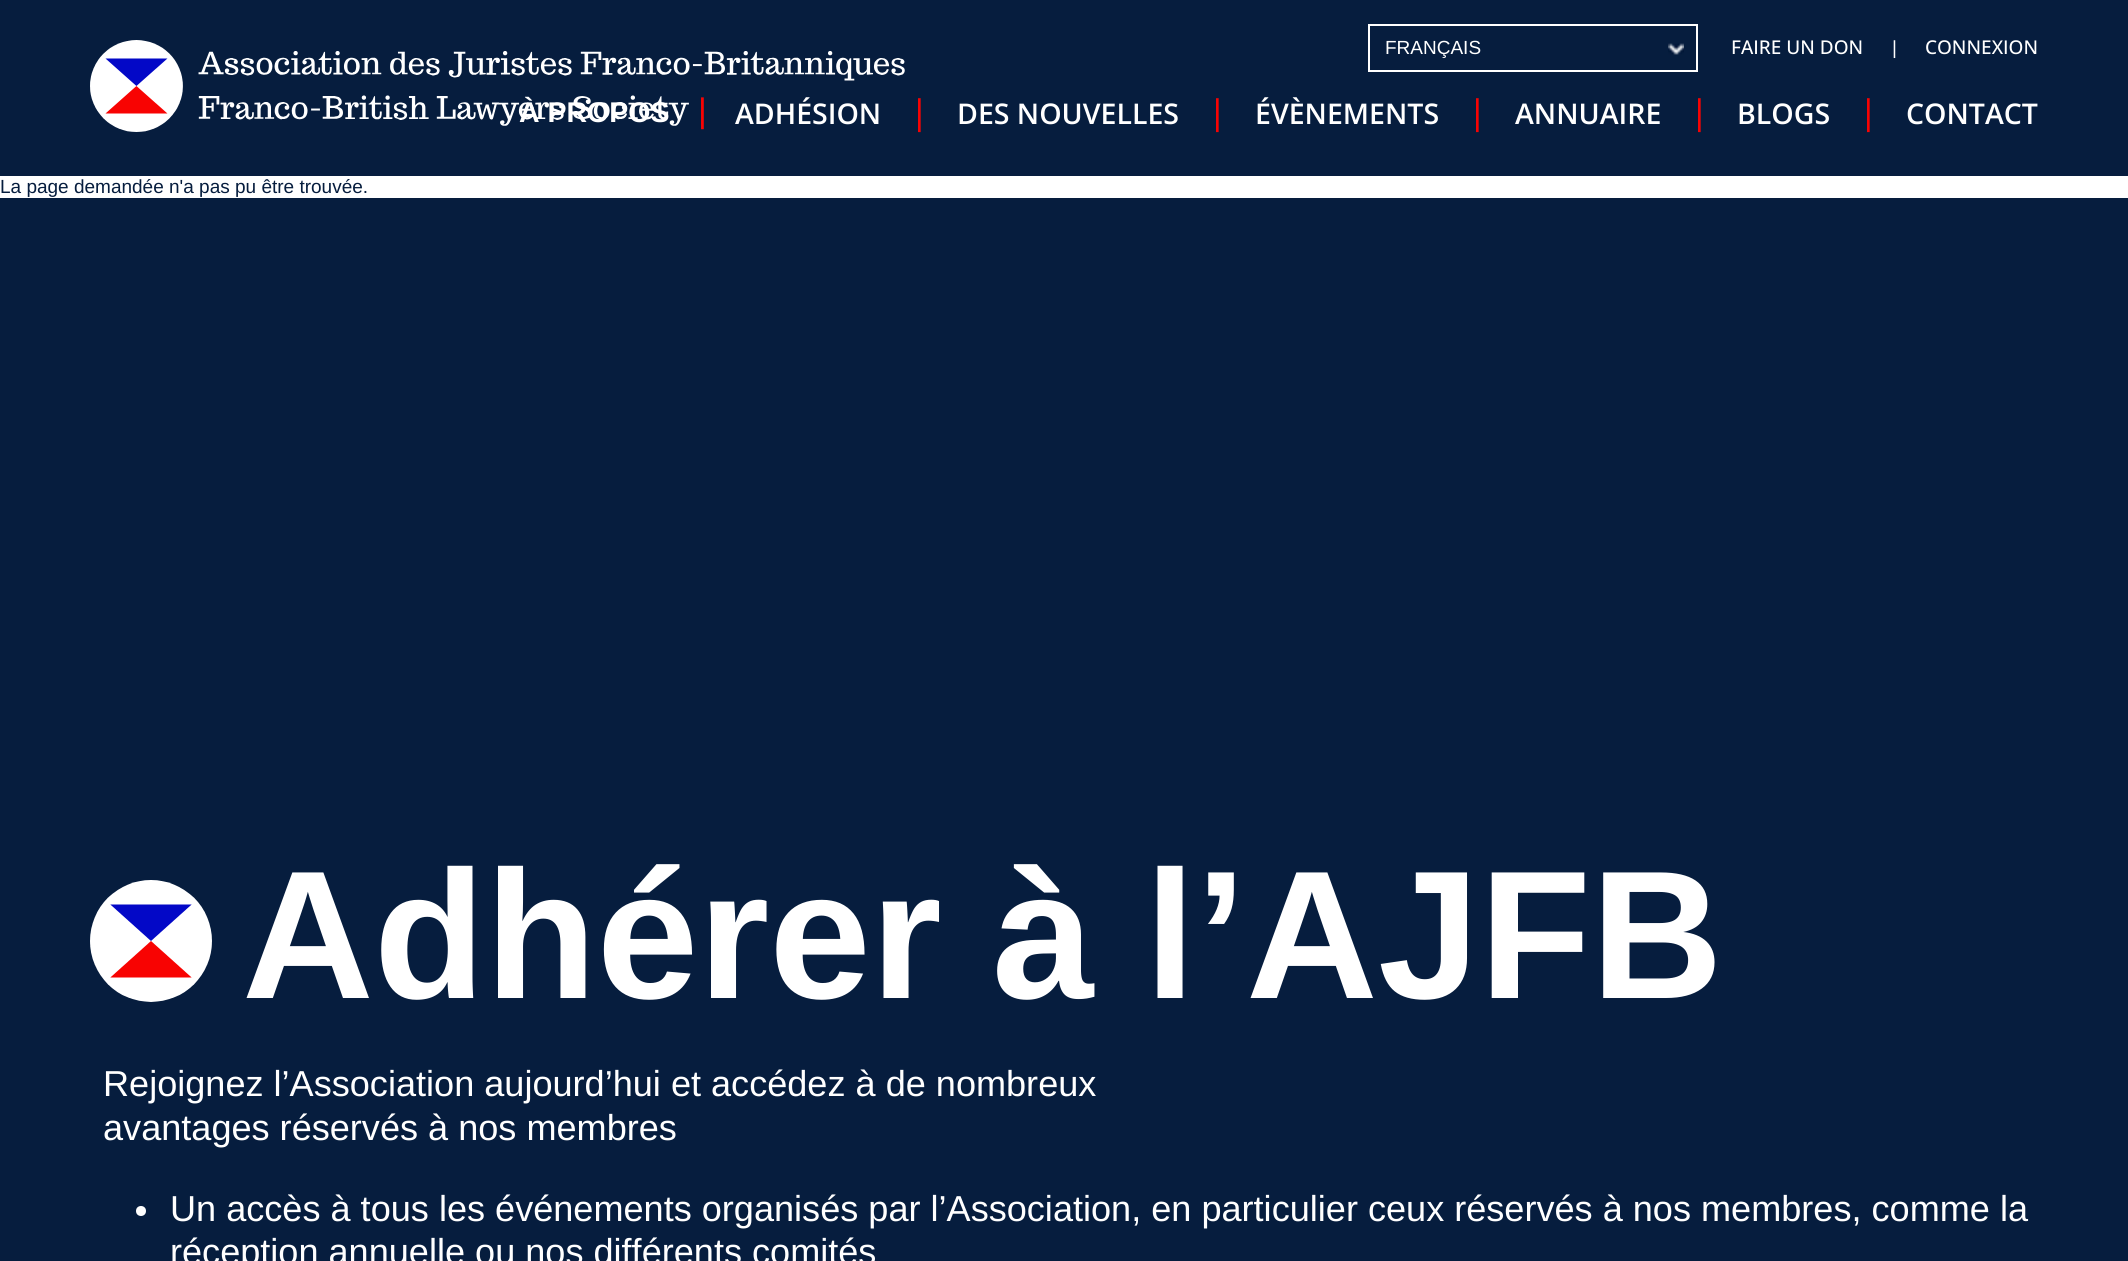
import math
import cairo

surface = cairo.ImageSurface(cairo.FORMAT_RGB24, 2128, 1261)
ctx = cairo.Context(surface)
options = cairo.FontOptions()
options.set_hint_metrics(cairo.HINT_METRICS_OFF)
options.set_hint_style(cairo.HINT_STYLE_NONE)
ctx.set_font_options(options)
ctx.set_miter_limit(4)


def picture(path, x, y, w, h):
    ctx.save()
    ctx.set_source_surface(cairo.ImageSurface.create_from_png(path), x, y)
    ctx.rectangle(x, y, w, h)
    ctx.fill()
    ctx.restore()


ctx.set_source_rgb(1, 1, 1)
ctx.paint()
ctx.set_source_rgb(0.027, 0.114, 0.243)
ctx.rectangle(0, 0, 2128, 176)
ctx.fill()
ctx.select_font_face("Liberation Sans", cairo.FONT_SLANT_NORMAL, cairo.FONT_WEIGHT_BOLD)
ctx.set_font_size(28.5)
ctx.set_source_rgb(1, 1, 1)
ctx.move_to(519, 122)
ctx.show_text("À PROPOS")
ctx.select_font_face("Liberation Sans")
ctx.set_font_size(34)
ctx.set_source_rgb(0.969, 0.012, 0.012)
ctx.move_to(698, 122)
ctx.show_text("|")
ctx.select_font_face("Open Sans SemiBold")
ctx.set_font_size(28.5)
ctx.set_source_rgb(1, 1, 1)
ctx.move_to(735, 124)
ctx.show_text("ADHÉSION")
picture("img1.png", 90, 40, 815, 92)
picture("img2.png", 1668, 43, 16, 12)
ctx.rectangle(1369, 25, 328, 46)
ctx.stroke()
ctx.select_font_face("Liberation Sans")
ctx.set_font_size(19)
ctx.move_to(1385, 54)
ctx.show_text("FRANÇAIS")
ctx.select_font_face("Open Sans Medium")
ctx.move_to(1731, 54)
ctx.show_text("FAIRE UN DON")
ctx.select_font_face("Liberation Sans")
ctx.move_to(1892, 54)
ctx.show_text("|")
ctx.select_font_face("Open Sans Medium")
ctx.move_to(1925, 54)
ctx.show_text("CONNEXION")
ctx.set_font_size(34)
ctx.set_source_rgb(0.969, 0.012, 0.012)
ctx.move_to(910, 124)
ctx.show_text("|")
ctx.select_font_face("Open Sans SemiBold")
ctx.set_font_size(28.5)
ctx.set_source_rgb(1, 1, 1)
ctx.move_to(957, 124)
ctx.show_text("DES NOUVELLES")
ctx.select_font_face("Open Sans Medium")
ctx.set_font_size(34)
ctx.set_source_rgb(0.969, 0.012, 0.012)
ctx.move_to(1208, 124)
ctx.show_text("|")
ctx.select_font_face("Open Sans SemiBold")
ctx.set_font_size(28.5)
ctx.set_source_rgb(1, 1, 1)
ctx.move_to(1255, 124)
ctx.show_text("ÉVÈNEMENTS")
ctx.select_font_face("Open Sans Medium")
ctx.set_font_size(34)
ctx.set_source_rgb(0.969, 0.012, 0.012)
ctx.move_to(1468, 124)
ctx.show_text("|")
ctx.select_font_face("Open Sans SemiBold")
ctx.set_font_size(28.5)
ctx.set_source_rgb(1, 1, 1)
ctx.move_to(1515, 124)
ctx.show_text("ANNUAIRE")
ctx.select_font_face("Open Sans Medium")
ctx.set_font_size(34)
ctx.set_source_rgb(0.969, 0.012, 0.012)
ctx.move_to(1690, 124)
ctx.show_text("|")
ctx.select_font_face("Open Sans SemiBold")
ctx.set_font_size(28.5)
ctx.set_source_rgb(1, 1, 1)
ctx.move_to(1737, 124)
ctx.show_text("BLOGS")
ctx.select_font_face("Open Sans Medium")
ctx.set_font_size(34)
ctx.set_source_rgb(0.969, 0.012, 0.012)
ctx.move_to(1859, 124)
ctx.show_text("|")
ctx.select_font_face("Open Sans SemiBold")
ctx.set_font_size(28.5)
ctx.set_source_rgb(1, 1, 1)
ctx.move_to(1906, 124)
ctx.show_text("CONTACT")
ctx.select_font_face("Liberation Sans")
ctx.set_font_size(19)
ctx.set_source_rgb(0.027, 0.114, 0.243)
ctx.move_to(0, 193)
ctx.show_text("La page demandée n'a pas pu être trouvée.")
ctx.rectangle(0, 198, 2128, 1063)
ctx.fill()
picture("img3.png", 90, 880, 122, 122)
ctx.select_font_face("Liberation Sans", cairo.FONT_SLANT_NORMAL, cairo.FONT_WEIGHT_BOLD)
ctx.set_font_size(182.5)
ctx.set_source_rgb(1, 1, 1)
ctx.move_to(242, 998)
ctx.show_text("Adhérer à l’AJFB")
ctx.select_font_face("Liberation Sans")
ctx.set_font_size(36.1)
ctx.move_to(103, 1096)
ctx.show_text("Rejoignez l’Association aujourd’hui et accédez à de nombreux")
ctx.move_to(103, 1140)
ctx.show_text("avantages réservés à nos membres")
ctx.new_path()
ctx.arc(141, 1211, 5, 0, 2 * math.pi)
ctx.fill()
ctx.move_to(170, 1221)
ctx.show_text("Un accès à tous les événements organisés par l’Association, en particulier ceux réservés à nos membres, comme la")
ctx.move_to(170, 1264)
ctx.show_text("réception annuelle ou nos différents comités")
surface.write_to_png("page.png")
